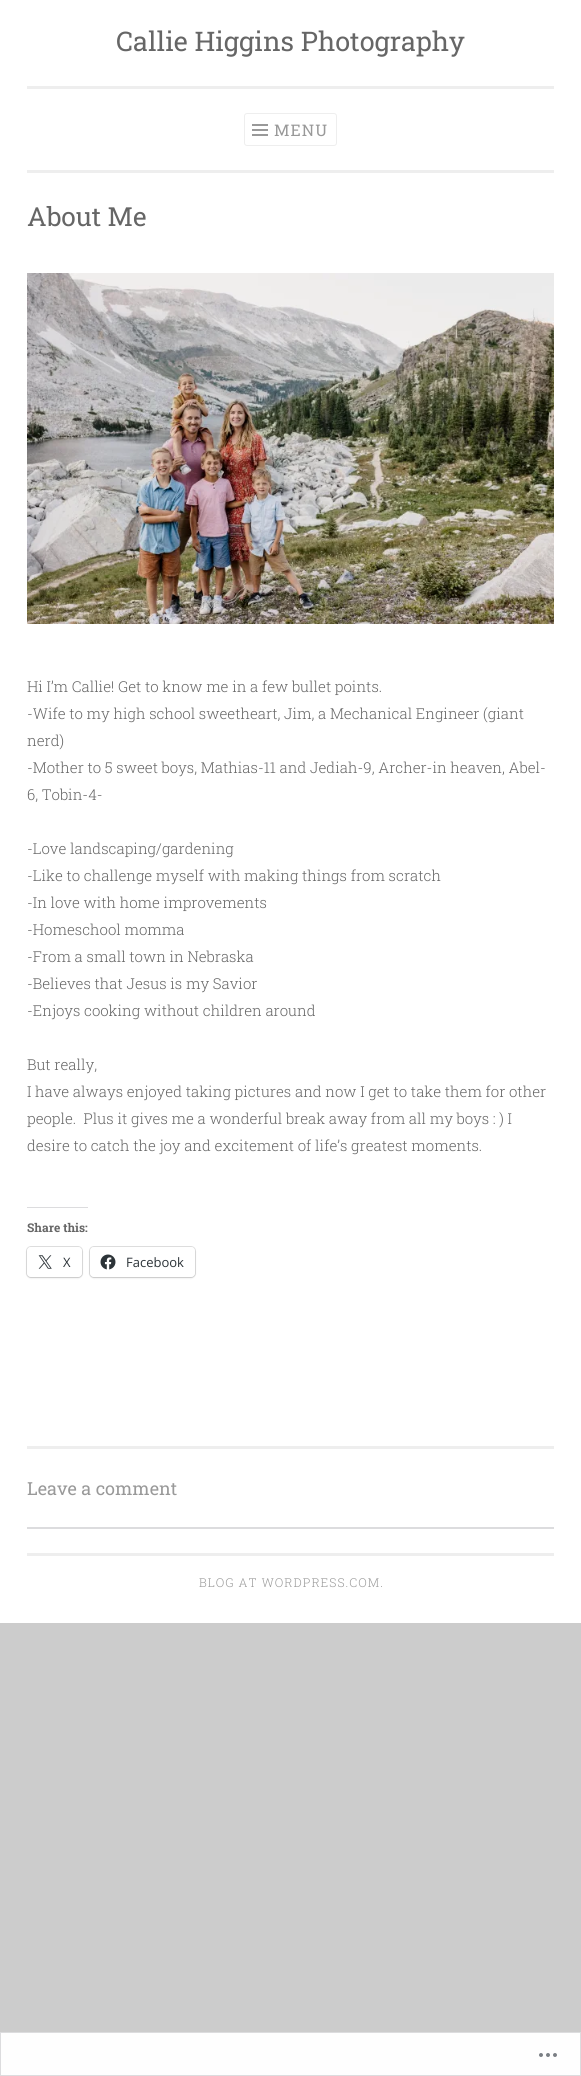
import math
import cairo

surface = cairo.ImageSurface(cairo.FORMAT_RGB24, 581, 2076)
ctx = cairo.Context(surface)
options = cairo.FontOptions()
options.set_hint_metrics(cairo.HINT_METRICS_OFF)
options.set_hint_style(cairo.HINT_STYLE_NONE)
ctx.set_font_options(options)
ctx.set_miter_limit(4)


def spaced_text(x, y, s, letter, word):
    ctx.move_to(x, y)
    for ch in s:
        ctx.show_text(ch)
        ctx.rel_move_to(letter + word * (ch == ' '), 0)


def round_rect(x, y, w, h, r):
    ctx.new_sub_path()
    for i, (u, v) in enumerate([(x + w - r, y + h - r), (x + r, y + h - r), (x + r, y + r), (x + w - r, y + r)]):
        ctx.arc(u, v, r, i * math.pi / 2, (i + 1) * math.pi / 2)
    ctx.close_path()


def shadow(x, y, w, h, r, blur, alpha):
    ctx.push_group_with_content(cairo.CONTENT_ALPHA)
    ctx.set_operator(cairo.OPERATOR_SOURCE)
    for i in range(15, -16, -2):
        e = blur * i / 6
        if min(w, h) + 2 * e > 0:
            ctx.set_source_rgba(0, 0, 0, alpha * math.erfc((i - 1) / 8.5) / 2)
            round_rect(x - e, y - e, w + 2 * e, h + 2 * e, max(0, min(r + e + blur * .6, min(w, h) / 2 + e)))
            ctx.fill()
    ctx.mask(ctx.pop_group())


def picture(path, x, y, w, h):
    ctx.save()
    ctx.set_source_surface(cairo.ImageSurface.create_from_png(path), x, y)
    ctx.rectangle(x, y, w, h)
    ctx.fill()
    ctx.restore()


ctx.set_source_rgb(0.8, 0.8, 0.8)
ctx.paint()
ctx.set_source_rgb(1, 1, 1)
ctx.rectangle(0, 0, 581, 1623)
ctx.fill()
ctx.set_source_rgb(0.933, 0.933, 0.933)
ctx.rectangle(27, 170, 527, 3)
ctx.fill()
ctx.select_font_face("Roboto Slab")
ctx.set_font_size(27)
ctx.set_source_rgb(0.4, 0.4, 0.4)
ctx.move_to(116, 51)
ctx.show_text("Callie Higgins Photography")
ctx.set_source_rgb(0.933, 0.933, 0.933)
ctx.rectangle(27, 86, 527, 3)
ctx.fill()
round_rect(244.5, 113.5, 92, 32, 2.5)
ctx.set_line_width(1)
ctx.stroke()
picture("img1.png", 252, 124, 16, 12)
ctx.set_font_size(16)
ctx.set_source_rgb(0.6, 0.6, 0.6)
spaced_text(274, 136, "MENU", 1, 0)
ctx.set_font_size(26.25)
ctx.set_source_rgb(0.4, 0.4, 0.4)
ctx.move_to(27, 226)
ctx.show_text("About Me")
picture("img2.png", 27, 273, 527, 351)
ctx.select_font_face("Roboto Slab Light")
ctx.set_font_size(15)
ctx.move_to(27, 692)
ctx.show_text("Hi I’m Callie! Get to know me in a few bullet points.")
ctx.move_to(27, 719)
ctx.show_text("-Wife to my high school sweetheart, Jim, a Mechanical Engineer (giant")
ctx.move_to(27, 746)
ctx.show_text("nerd)")
ctx.move_to(27, 773)
ctx.show_text("-Mother to 5 sweet boys, Mathias-11 and Jediah-9, Archer-in heaven, Abel-")
ctx.move_to(27, 800)
ctx.show_text("6, Tobin-4-")
ctx.move_to(27, 854)
ctx.show_text("-Love landscaping/gardening")
ctx.move_to(27, 881)
ctx.show_text("-Like to challenge myself with making things from scratch")
ctx.move_to(27, 908)
ctx.show_text("-In love with home improvements")
ctx.move_to(27, 935)
ctx.show_text("-Homeschool momma")
ctx.move_to(27, 962)
ctx.show_text("-From a small town in Nebraska")
ctx.move_to(27, 989)
ctx.show_text("-Believes that Jesus is my Savior")
ctx.move_to(27, 1016)
ctx.show_text("-Enjoys cooking without children around")
ctx.move_to(27, 1070)
ctx.show_text("But really,")
ctx.move_to(27, 1097)
ctx.show_text("I have always enjoyed taking pictures and now I get to take them for other")
ctx.move_to(27, 1124)
ctx.show_text("people.  Plus it gives me a wonderful break away from all my boys : ) I")
ctx.move_to(27, 1151)
ctx.show_text("desire to catch the joy and excitement of life’s greatest moments.")
ctx.set_source_rgb(0.863, 0.863, 0.871)
ctx.rectangle(27, 1207, 61, 1)
ctx.fill()
ctx.select_font_face("Roboto Slab", cairo.FONT_SLANT_NORMAL, cairo.FONT_WEIGHT_BOLD)
ctx.set_font_size(12)
ctx.set_source_rgb(0.4, 0.4, 0.4)
ctx.move_to(27, 1232)
ctx.show_text("Share this:")
round_rect(26.5, 1246.5, 56, 31, 4.5)
ctx.set_source_rgb(0.878, 0.878, 0.878)
ctx.stroke()
ctx.set_source_rgb(0, 0, 0)
shadow(27, 1248, 55, 30, 4, 1, 0.12)
ctx.set_source_rgb(1, 1, 1)
round_rect(27, 1247, 55, 30, 4)
ctx.fill()
picture("img3.png", 38, 1255, 14, 14)
ctx.select_font_face("Open Sans")
ctx.set_font_size(13)
ctx.set_source_rgb(0.173, 0.2, 0.22)
ctx.move_to(63, 1267)
ctx.show_text("X")
round_rect(89.5, 1246.5, 106, 31, 4.5)
ctx.set_source_rgb(0.878, 0.878, 0.878)
ctx.stroke()
ctx.set_source_rgb(0, 0, 0)
shadow(90, 1248, 105, 30, 4, 1, 0.12)
ctx.set_source_rgb(1, 1, 1)
round_rect(90, 1247, 105, 30, 4)
ctx.fill()
picture("img4.png", 100, 1254, 16, 16)
ctx.set_source_rgb(0.173, 0.2, 0.22)
ctx.move_to(126, 1267)
ctx.show_text("Facebook")
ctx.set_source_rgb(0.933, 0.933, 0.933)
ctx.rectangle(27, 1446, 527, 3)
ctx.fill()
ctx.select_font_face("Roboto Slab")
ctx.set_font_size(18)
ctx.set_source_rgb(0.6, 0.6, 0.6)
ctx.move_to(27, 1495)
ctx.show_text("Leave a comment")
ctx.set_source_rgb(0.863, 0.863, 0.871)
ctx.rectangle(27, 1527, 527, 2)
ctx.fill()
ctx.set_source_rgb(0.933, 0.933, 0.933)
ctx.rectangle(27, 1553, 527, 3)
ctx.fill()
ctx.select_font_face("Roboto Slab Light")
ctx.set_font_size(12.25)
ctx.set_source_rgb(0.6, 0.6, 0.6)
spaced_text(199, 1587, "BLOG AT WORDPRESS.COM.", 1, 0)
ctx.set_source_rgb(0.996, 0.996, 0.996)
ctx.rectangle(0.5, 2032.5, 580, 43)
ctx.fill_preserve()
ctx.set_source_rgb(0.863, 0.863, 0.871)
ctx.stroke()
picture("img5.png", 539, 2053, 18, 4)
surface.write_to_png("page.png")
